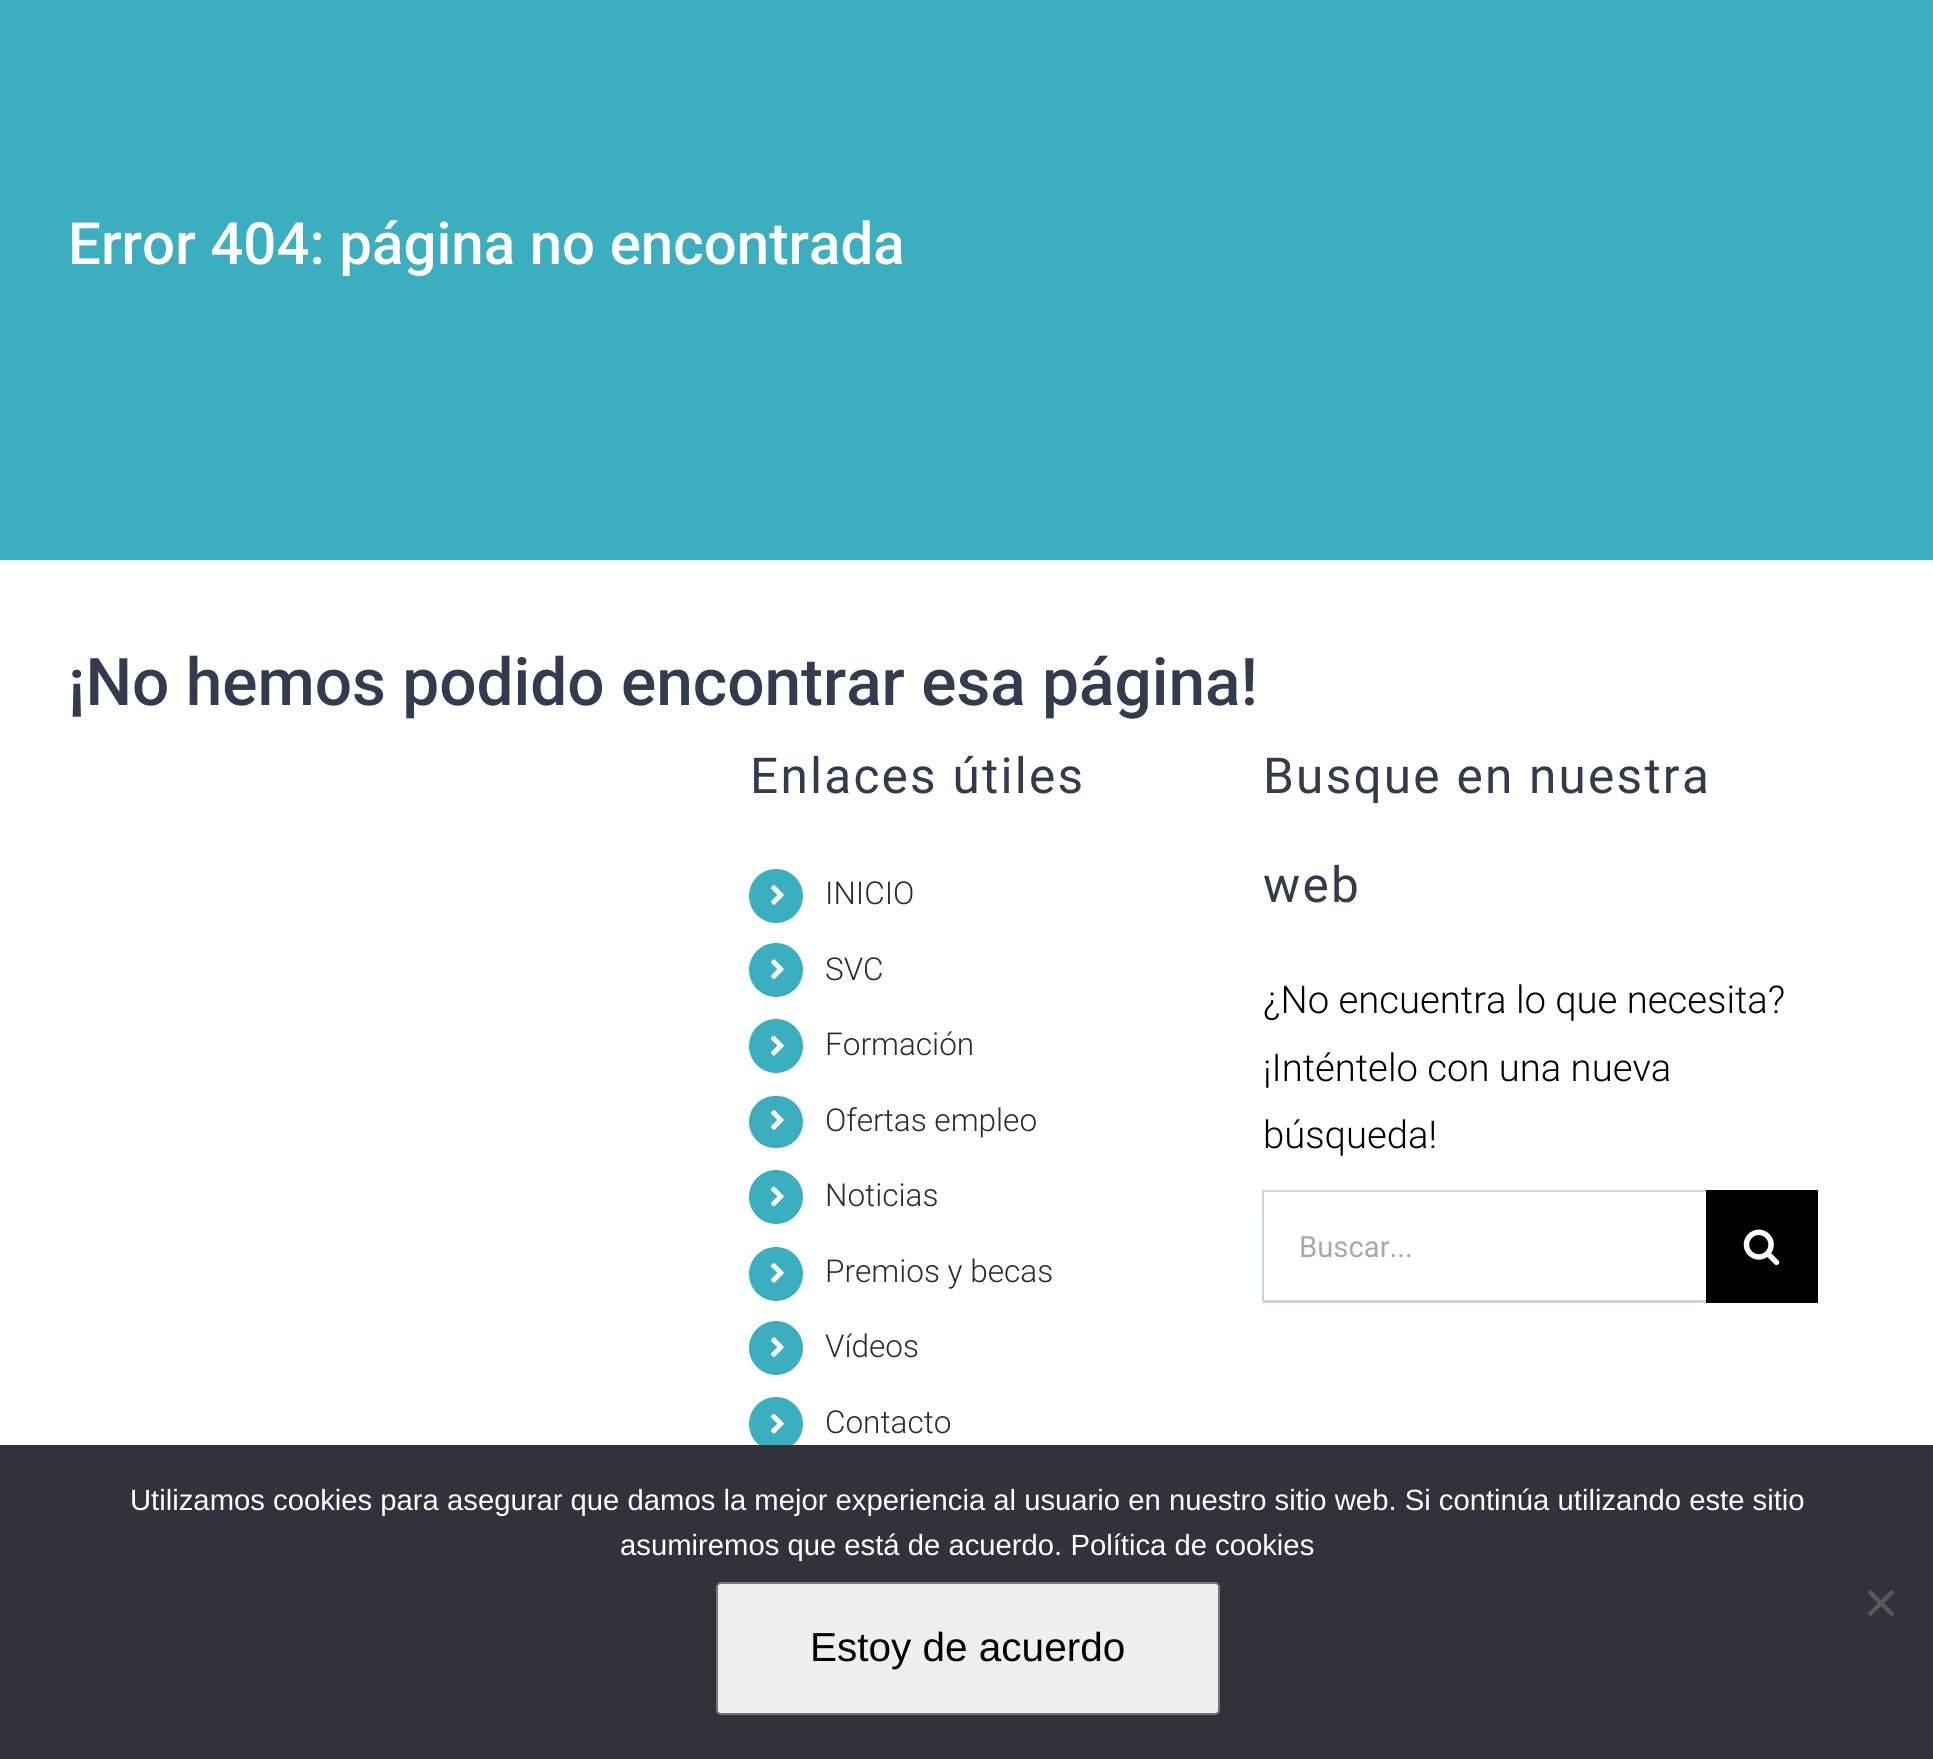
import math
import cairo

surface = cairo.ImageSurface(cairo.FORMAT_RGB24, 1933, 1759)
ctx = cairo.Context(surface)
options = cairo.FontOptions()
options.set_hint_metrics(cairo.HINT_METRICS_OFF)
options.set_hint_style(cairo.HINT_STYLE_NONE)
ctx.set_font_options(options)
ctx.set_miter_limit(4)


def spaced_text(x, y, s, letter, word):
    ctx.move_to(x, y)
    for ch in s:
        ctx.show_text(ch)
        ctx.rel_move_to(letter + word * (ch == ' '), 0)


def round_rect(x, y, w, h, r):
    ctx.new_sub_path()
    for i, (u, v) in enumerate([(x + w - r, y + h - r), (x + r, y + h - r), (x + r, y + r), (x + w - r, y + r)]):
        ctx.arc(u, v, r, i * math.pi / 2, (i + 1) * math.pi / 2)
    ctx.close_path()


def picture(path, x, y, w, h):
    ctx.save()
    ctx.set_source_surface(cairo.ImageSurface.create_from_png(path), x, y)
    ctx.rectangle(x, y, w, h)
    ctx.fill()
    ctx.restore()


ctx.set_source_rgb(1, 1, 1)
ctx.paint()
ctx.set_source_rgb(0.231, 0.686, 0.749)
ctx.rectangle(0, 0, 1933, 560)
ctx.fill()
ctx.select_font_face("Roboto Medium")
ctx.set_font_size(58.25)
ctx.set_source_rgb(1, 1, 1)
ctx.move_to(68, 264)
ctx.show_text("Error 404: página no encontrada")
ctx.set_font_size(65.75)
ctx.set_source_rgb(0.2, 0.235, 0.306)
ctx.move_to(68, 705)
ctx.show_text("¡No hemos podido encontrar esa página!")
ctx.select_font_face("Roboto")
ctx.set_font_size(49.5)
spaced_text(750, 793, "Enlaces útiles", 2.25, 0)
ctx.set_source_rgb(0.231, 0.686, 0.749)
ctx.new_path()
ctx.arc(776, 896, 27, 0, 2 * math.pi)
ctx.fill()
picture("img1.png", 771, 885, 13, 20)
ctx.select_font_face("Roboto Light")
ctx.set_font_size(31.5)
ctx.set_source_rgb(0.169, 0.169, 0.169)
ctx.move_to(825, 904)
ctx.show_text("INICIO")
ctx.set_source_rgb(0.231, 0.686, 0.749)
ctx.new_path()
ctx.arc(776, 970, 27, 0, 2 * math.pi)
ctx.fill()
picture("img2.png", 771, 959, 13, 20)
ctx.set_source_rgb(0.169, 0.169, 0.169)
ctx.move_to(825, 980)
ctx.show_text("SVC")
ctx.set_source_rgb(0.231, 0.686, 0.749)
ctx.new_path()
ctx.arc(776, 1046, 27, 0, 2 * math.pi)
ctx.fill()
picture("img3.png", 771, 1035, 13, 21)
ctx.set_source_rgb(0.169, 0.169, 0.169)
ctx.move_to(825, 1055)
ctx.show_text("Formación")
ctx.set_source_rgb(0.231, 0.686, 0.749)
round_rect(749, 1096, 54, 52, 26)
ctx.fill()
picture("img1.png", 771, 1110, 13, 20)
ctx.set_source_rgb(0.169, 0.169, 0.169)
ctx.move_to(825, 1131)
ctx.show_text("Ofertas empleo")
ctx.set_source_rgb(0.231, 0.686, 0.749)
ctx.new_path()
ctx.arc(776, 1197, 27, 0, 2 * math.pi)
ctx.fill()
picture("img4.png", 771, 1186, 13, 21)
ctx.set_source_rgb(0.169, 0.169, 0.169)
ctx.move_to(825, 1206)
ctx.show_text("Noticias")
ctx.set_source_rgb(0.231, 0.686, 0.749)
ctx.new_path()
ctx.arc(776, 1274, 27, 0, 2 * math.pi)
ctx.fill()
picture("img1.png", 771, 1263, 13, 20)
ctx.set_source_rgb(0.169, 0.169, 0.169)
ctx.move_to(825, 1282)
ctx.show_text("Premios y becas")
ctx.set_source_rgb(0.231, 0.686, 0.749)
ctx.new_path()
ctx.arc(776, 1348, 27, 0, 2 * math.pi)
ctx.fill()
picture("img2.png", 771, 1337, 13, 20)
ctx.set_source_rgb(0.169, 0.169, 0.169)
ctx.move_to(825, 1357)
ctx.show_text("Vídeos")
ctx.set_source_rgb(0.231, 0.686, 0.749)
ctx.new_path()
ctx.arc(776, 1424, 27, 0, 2 * math.pi)
ctx.fill()
picture("img3.png", 771, 1413, 13, 21)
ctx.set_source_rgb(0.169, 0.169, 0.169)
ctx.move_to(825, 1433)
ctx.show_text("Contacto")
ctx.select_font_face("Roboto")
ctx.set_font_size(49.5)
ctx.set_source_rgb(0.2, 0.235, 0.306)
spaced_text(1263, 793, "Busque en nuestra", 2.25, 0)
spaced_text(1263, 902, "web", 2.25, 0)
ctx.select_font_face("Roboto Light")
ctx.set_font_size(38.25)
ctx.set_source_rgb(0, 0, 0)
ctx.move_to(1263, 1013)
ctx.show_text("¿No encuentra lo que necesita?")
ctx.move_to(1263, 1081)
ctx.show_text("¡Inténtelo con una nueva")
ctx.move_to(1263, 1148)
ctx.show_text("búsqueda!")
ctx.set_source_rgb(0.784, 0.843, 0.851)
ctx.new_path()
ctx.move_to(1262, 1190)
ctx.line_to(1706, 1190)
ctx.line_to(1706, 1192)
ctx.line_to(1264, 1192)
ctx.close_path()
ctx.fill()
ctx.new_path()
ctx.move_to(1706, 1303)
ctx.line_to(1262, 1303)
ctx.line_to(1264, 1300)
ctx.line_to(1706, 1300)
ctx.close_path()
ctx.fill()
ctx.set_source_rgba(0.718, 0.796, 0.808, 0.77)
ctx.new_path()
ctx.move_to(1262, 1303)
ctx.line_to(1262, 1190)
ctx.line_to(1264, 1192)
ctx.line_to(1264, 1300)
ctx.close_path()
ctx.fill()
ctx.select_font_face("Roboto")
ctx.set_font_size(29.25)
ctx.set_source_rgb(0.667, 0.663, 0.663)
ctx.move_to(1299, 1257)
ctx.show_text("Buscar...")
ctx.set_source_rgb(0, 0, 0)
ctx.rectangle(1706, 1190, 112, 113)
ctx.fill()
picture("img5.png", 1743, 1229, 37, 37)
ctx.set_source_rgb(0.196, 0.196, 0.227)
ctx.rectangle(0, 1445, 1933, 314)
ctx.fill()
ctx.select_font_face("Liberation Sans")
ctx.set_source_rgb(1, 1, 1)
ctx.move_to(130, 1510)
ctx.show_text("Utilizamos cookies para asegurar que damos la mejor experiencia al usuario en nuestro sitio web. Si continúa utilizando este sitio")
ctx.move_to(620, 1555)
ctx.show_text("asumiremos que está de acuerdo. Política de cookies")
ctx.set_source_rgb(0.349, 0.349, 0.365)
ctx.new_path()
ctx.move_to(1891.5, 1589.5)
ctx.line_to(1894.5, 1593)
ctx.line_to(1870.5, 1616.5)
ctx.line_to(1867.5, 1613.5)
ctx.close_path()
ctx.fill()
ctx.new_path()
ctx.move_to(1867.5, 1593)
ctx.line_to(1870.5, 1589.5)
ctx.line_to(1894.5, 1613.5)
ctx.line_to(1891.5, 1616.5)
ctx.close_path()
ctx.fill()
ctx.set_source_rgb(0.937, 0.937, 0.937)
round_rect(717, 1583, 502, 131, 4)
ctx.fill_preserve()
ctx.set_source_rgb(0.463, 0.463, 0.463)
ctx.stroke()
ctx.set_font_size(40.5)
ctx.set_source_rgb(0, 0, 0)
ctx.move_to(810, 1661)
ctx.show_text("Estoy de acuerdo")
surface.write_to_png("page.png")
